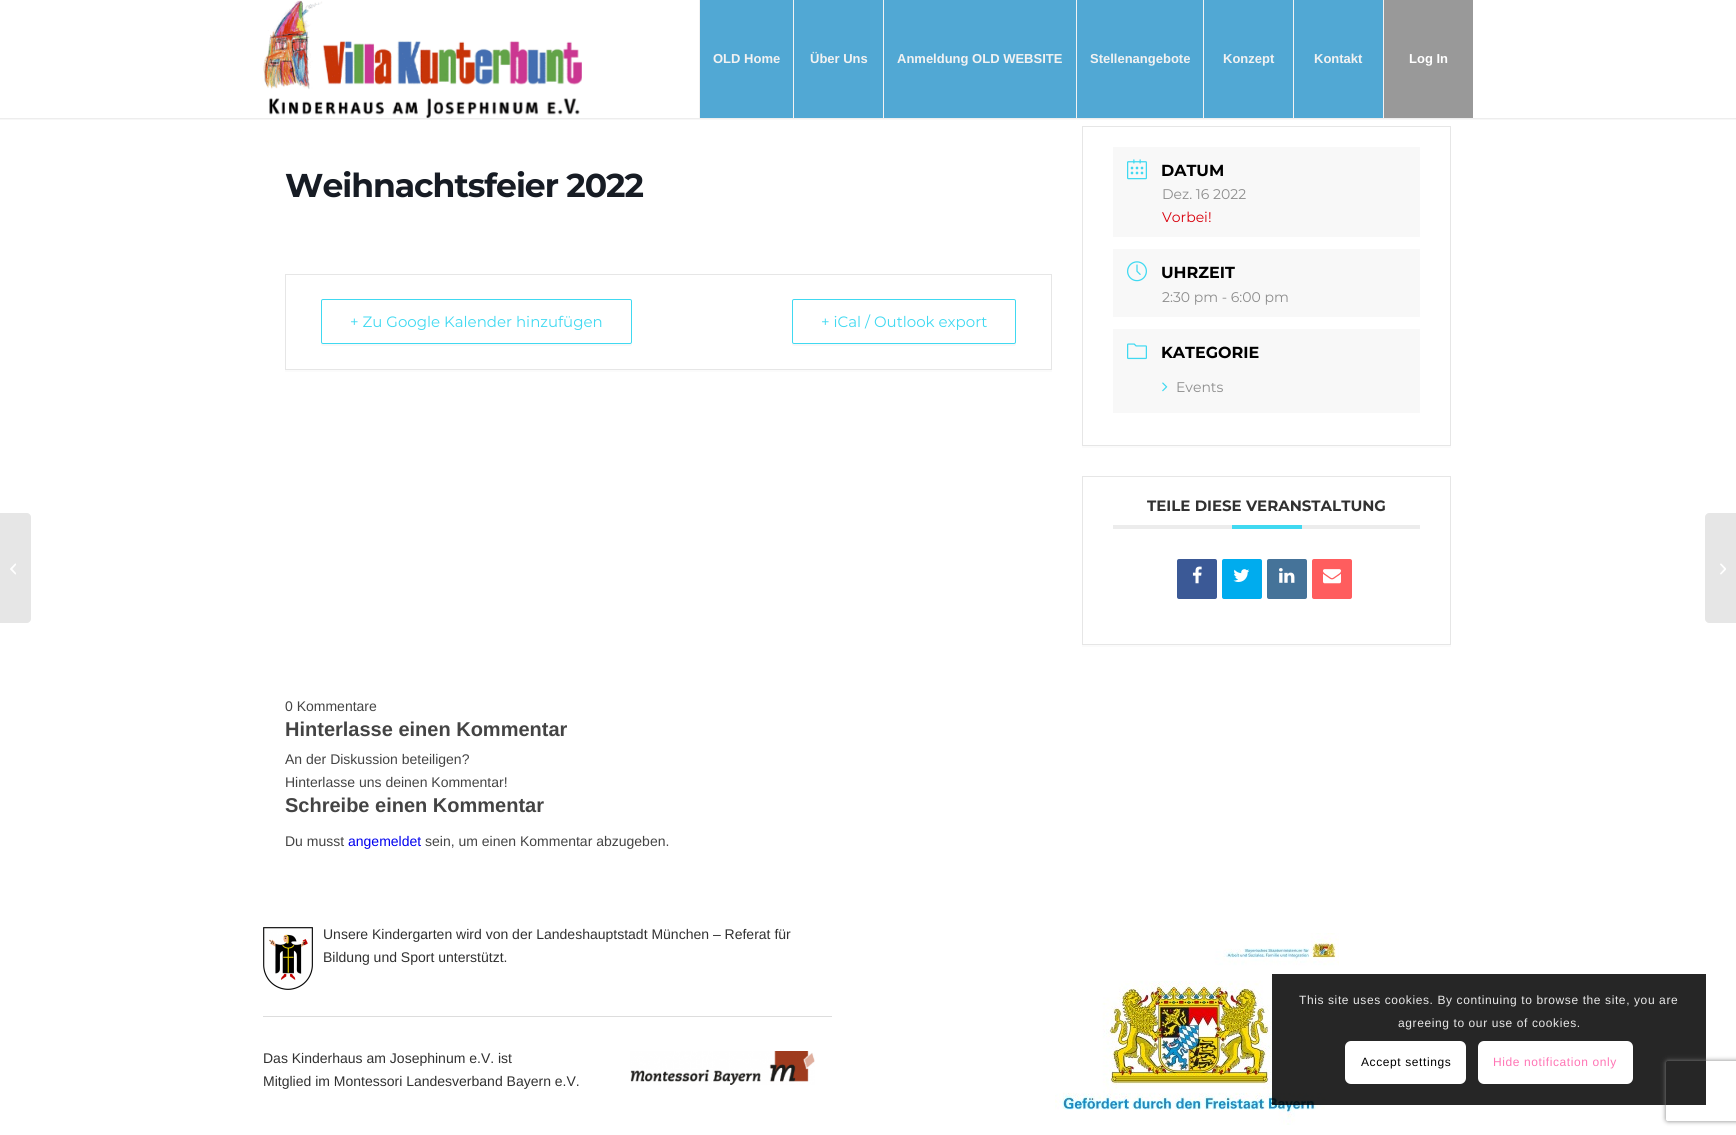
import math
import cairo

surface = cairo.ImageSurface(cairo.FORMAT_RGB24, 1736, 1135)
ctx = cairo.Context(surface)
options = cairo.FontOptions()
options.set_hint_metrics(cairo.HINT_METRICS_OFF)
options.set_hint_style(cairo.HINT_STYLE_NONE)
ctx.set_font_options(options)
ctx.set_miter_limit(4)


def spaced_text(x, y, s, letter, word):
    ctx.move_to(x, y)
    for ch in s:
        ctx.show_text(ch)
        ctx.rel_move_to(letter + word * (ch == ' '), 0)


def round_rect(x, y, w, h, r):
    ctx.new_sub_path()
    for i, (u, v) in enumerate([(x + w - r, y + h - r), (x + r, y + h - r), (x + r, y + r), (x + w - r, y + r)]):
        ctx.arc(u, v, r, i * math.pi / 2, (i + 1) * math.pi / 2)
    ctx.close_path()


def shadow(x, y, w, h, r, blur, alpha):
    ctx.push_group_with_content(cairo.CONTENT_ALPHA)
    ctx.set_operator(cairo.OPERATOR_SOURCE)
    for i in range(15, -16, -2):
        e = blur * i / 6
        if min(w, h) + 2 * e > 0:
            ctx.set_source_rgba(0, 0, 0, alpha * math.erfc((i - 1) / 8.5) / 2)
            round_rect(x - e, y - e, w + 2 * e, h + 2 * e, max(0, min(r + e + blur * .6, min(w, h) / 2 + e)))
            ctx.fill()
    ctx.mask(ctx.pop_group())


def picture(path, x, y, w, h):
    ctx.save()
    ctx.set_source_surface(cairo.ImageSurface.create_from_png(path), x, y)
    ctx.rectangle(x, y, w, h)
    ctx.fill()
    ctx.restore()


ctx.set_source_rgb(1, 1, 1)
ctx.paint()
ctx.save()
ctx.rectangle(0, 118, 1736, 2)
ctx.clip()
ctx.set_source_rgb(0, 0, 0)
shadow(-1, -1, 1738, 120, 0, 1, 0.1)
ctx.restore()
picture("img1.png", 263, 0, 319, 118)
ctx.set_source_rgb(0.318, 0.659, 0.831)
ctx.rectangle(700, 0, 93, 118)
ctx.fill()
ctx.set_source_rgb(0.949, 0.949, 0.949)
ctx.rectangle(699, 0, 1, 118)
ctx.fill()
ctx.select_font_face("Liberation Sans", cairo.FONT_SLANT_NORMAL, cairo.FONT_WEIGHT_BOLD)
ctx.set_font_size(13)
ctx.move_to(713, 63)
ctx.show_text("OLD Home")
ctx.set_source_rgb(0.318, 0.659, 0.831)
ctx.rectangle(794, 0, 89, 118)
ctx.fill()
ctx.set_source_rgb(0.949, 0.949, 0.949)
ctx.rectangle(793, 0, 1, 118)
ctx.fill()
ctx.move_to(810, 63)
ctx.show_text("Über Uns")
ctx.set_source_rgb(0.318, 0.659, 0.831)
ctx.rectangle(884, 0, 192, 118)
ctx.fill()
ctx.set_source_rgb(0.949, 0.949, 0.949)
ctx.rectangle(883, 0, 1, 118)
ctx.fill()
ctx.move_to(897, 63)
ctx.show_text("Anmeldung OLD WEBSITE")
ctx.set_source_rgb(0.318, 0.659, 0.831)
ctx.rectangle(1077, 0, 126, 118)
ctx.fill()
ctx.set_source_rgb(0.949, 0.949, 0.949)
ctx.rectangle(1076, 0, 1, 118)
ctx.fill()
ctx.move_to(1090, 63)
ctx.show_text("Stellenangebote")
ctx.set_source_rgb(0.318, 0.659, 0.831)
ctx.rectangle(1204, 0, 89, 118)
ctx.fill()
ctx.set_source_rgb(0.949, 0.949, 0.949)
ctx.rectangle(1203, 0, 1, 118)
ctx.fill()
ctx.move_to(1223, 63)
ctx.show_text("Konzept")
ctx.set_source_rgb(0.318, 0.659, 0.831)
ctx.rectangle(1294, 0, 89, 118)
ctx.fill()
ctx.set_source_rgb(0.949, 0.949, 0.949)
ctx.rectangle(1293, 0, 1, 118)
ctx.fill()
ctx.move_to(1314, 63)
ctx.show_text("Kontakt")
ctx.set_source_rgb(0.6, 0.6, 0.6)
ctx.rectangle(1384, 0, 89, 118)
ctx.fill()
ctx.set_source_rgb(0.949, 0.949, 0.949)
ctx.rectangle(1383, 0, 1, 118)
ctx.fill()
ctx.set_source_rgb(1, 1, 1)
ctx.move_to(1409, 63)
ctx.show_text("Log In")
ctx.set_source_rgb(0.902, 0.902, 0.902)
ctx.new_path()
ctx.move_to(0, 513)
ctx.line_to(27, 513)
ctx.curve_to(29, 513, 31, 515, 31, 517)
ctx.line_to(31, 619)
ctx.curve_to(31, 621, 29, 623, 27, 623)
ctx.line_to(0, 623)
ctx.close_path()
ctx.fill()
picture("img2.png", 10, 563, 6, 12)
ctx.select_font_face("Montserrat", cairo.FONT_SLANT_NORMAL, cairo.FONT_WEIGHT_BOLD)
ctx.set_font_size(33)
ctx.set_source_rgb(0.09, 0.11, 0.141)
spaced_text(285, 197, "Weihnachtsfeier 2022", -1, 0)
ctx.set_source_rgb(0.984, 0.984, 0.984)
ctx.rectangle(285, 370, 767, 2)
ctx.fill()
ctx.rectangle(285.5, 274.5, 766, 95)
ctx.set_source_rgb(0.902, 0.902, 0.902)
ctx.set_line_width(1)
ctx.stroke()
ctx.set_source_rgb(0.969, 0.969, 0.969)
ctx.new_path()
ctx.move_to(321, 342)
ctx.line_to(321, 344)
ctx.curve_to(321, 345, 322, 346, 323, 346)
ctx.line_to(630, 346)
ctx.curve_to(631, 346, 632, 345, 632, 344)
ctx.line_to(632, 342)
ctx.curve_to(632, 343, 631, 344, 630, 344)
ctx.line_to(323, 344)
ctx.curve_to(322, 344, 321, 343, 321, 342)
ctx.close_path()
ctx.fill()
round_rect(321.5, 299.5, 310, 44, 1.5)
ctx.set_source_rgb(0.251, 0.851, 0.945)
ctx.stroke()
ctx.select_font_face("Montserrat")
ctx.set_font_size(15)
ctx.move_to(350, 327)
ctx.show_text("+ Zu Google Kalender hinzufügen")
ctx.set_source_rgb(0.969, 0.969, 0.969)
ctx.new_path()
ctx.move_to(792, 342)
ctx.line_to(792, 344)
ctx.curve_to(792, 345, 793, 346, 794, 346)
ctx.line_to(1014, 346)
ctx.curve_to(1015, 346, 1016, 345, 1016, 344)
ctx.line_to(1016, 342)
ctx.curve_to(1016, 343, 1015, 344, 1014, 344)
ctx.line_to(794, 344)
ctx.curve_to(793, 344, 792, 343, 792, 342)
ctx.close_path()
ctx.fill()
round_rect(792.5, 299.5, 223, 44, 1.5)
ctx.set_source_rgb(0.251, 0.851, 0.945)
ctx.stroke()
ctx.move_to(821, 327)
ctx.show_text("+ iCal / Outlook export")
ctx.set_source_rgb(0.984, 0.984, 0.984)
ctx.rectangle(1082, 446, 369, 2)
ctx.fill()
ctx.rectangle(1082.5, 126.5, 368, 319)
ctx.set_source_rgb(0.902, 0.902, 0.902)
ctx.stroke()
ctx.set_source_rgb(0.969, 0.969, 0.969)
ctx.rectangle(1113, 147, 307, 90)
ctx.fill()
picture("img3.png", 1127, 159, 20, 21)
ctx.select_font_face("Montserrat", cairo.FONT_SLANT_NORMAL, cairo.FONT_WEIGHT_BOLD)
ctx.set_font_size(16)
ctx.set_source_rgb(0, 0, 0)
ctx.move_to(1161, 176)
ctx.show_text("DATUM")
ctx.select_font_face("Montserrat")
ctx.set_font_size(14)
ctx.set_source_rgb(0.553, 0.553, 0.553)
ctx.move_to(1162, 199)
ctx.show_text("Dez. 16 2022")
ctx.set_source_rgb(0.847, 0, 0.047)
ctx.move_to(1162, 222)
ctx.show_text("Vorbei!")
ctx.set_source_rgb(0.969, 0.969, 0.969)
ctx.rectangle(1113, 249, 307, 68)
ctx.fill()
picture("img4.png", 1127, 261, 20, 21)
ctx.select_font_face("Montserrat", cairo.FONT_SLANT_NORMAL, cairo.FONT_WEIGHT_BOLD)
ctx.set_font_size(16)
ctx.set_source_rgb(0, 0, 0)
ctx.move_to(1161, 278)
ctx.show_text("UHRZEIT")
ctx.select_font_face("Montserrat")
ctx.set_font_size(14)
ctx.set_source_rgb(0.553, 0.553, 0.553)
ctx.move_to(1162, 302)
ctx.show_text("2:30 pm - 6:00 pm")
ctx.set_source_rgb(0.969, 0.969, 0.969)
ctx.rectangle(1113, 329, 307, 84)
ctx.fill()
picture("img5.png", 1127, 343, 20, 17)
ctx.select_font_face("Montserrat", cairo.FONT_SLANT_NORMAL, cairo.FONT_WEIGHT_BOLD)
ctx.set_font_size(16)
ctx.set_source_rgb(0, 0, 0)
ctx.move_to(1161, 358)
ctx.show_text("KATEGORIE")
picture("img6.png", 1162, 382, 6, 10)
ctx.select_font_face("Montserrat")
ctx.set_font_size(14)
ctx.set_source_rgb(0.553, 0.553, 0.553)
ctx.move_to(1176, 392)
ctx.show_text("Events")
ctx.set_source_rgb(0.984, 0.984, 0.984)
ctx.rectangle(1082, 645, 369, 2)
ctx.fill()
ctx.rectangle(1082.5, 476.5, 368, 168)
ctx.set_source_rgb(0.902, 0.902, 0.902)
ctx.stroke()
ctx.set_source_rgb(0.922, 0.922, 0.922)
ctx.rectangle(1113, 525, 307, 4)
ctx.fill()
ctx.select_font_face("Montserrat", cairo.FONT_SLANT_NORMAL, cairo.FONT_WEIGHT_BOLD)
ctx.set_font_size(15)
ctx.set_source_rgb(0.192, 0.192, 0.192)
ctx.move_to(1147, 511)
ctx.show_text("TEILE DIESE VERANSTALTUNG")
ctx.set_source_rgb(0.251, 0.851, 0.945)
ctx.rectangle(1232, 525, 70, 4)
ctx.fill()
ctx.set_source_rgb(0.231, 0.349, 0.588)
round_rect(1177, 559, 40, 40, 2)
ctx.fill()
picture("img7.png", 1192, 566, 10, 18)
ctx.set_source_rgb(0, 0.675, 0.933)
round_rect(1222, 559, 40, 40, 2)
ctx.fill()
picture("img8.png", 1233, 569, 17, 13)
ctx.set_source_rgb(0.271, 0.451, 0.6)
round_rect(1267, 559, 40, 40, 2)
ctx.fill()
picture("img9.png", 1279, 568, 16, 15)
ctx.set_source_rgb(1, 0.365, 0.369)
round_rect(1312, 559, 40, 40, 2)
ctx.fill()
picture("img10.png", 1323, 569, 18, 15)
ctx.select_font_face("Liberation Sans")
ctx.set_font_size(14)
ctx.set_source_rgb(0.267, 0.267, 0.267)
ctx.move_to(285, 711)
ctx.show_text("0 Kommentare")
ctx.select_font_face("Liberation Sans", cairo.FONT_SLANT_NORMAL, cairo.FONT_WEIGHT_BOLD)
ctx.set_font_size(20)
ctx.move_to(285, 736)
ctx.show_text("Hinterlasse einen Kommentar")
ctx.select_font_face("Liberation Sans")
ctx.set_font_size(14)
ctx.move_to(285, 764)
ctx.show_text("An der Diskussion beteiligen?")
ctx.move_to(285, 787)
ctx.show_text("Hinterlasse uns deinen Kommentar!")
ctx.select_font_face("Liberation Sans", cairo.FONT_SLANT_NORMAL, cairo.FONT_WEIGHT_BOLD)
ctx.set_font_size(20)
ctx.move_to(285, 812)
ctx.show_text("Schreibe einen Kommentar")
ctx.select_font_face("Liberation Sans")
ctx.set_font_size(14)
ctx.move_to(285, 846)
ctx.show_text("Du musst")
ctx.set_source_rgb(0, 0, 0.933)
ctx.move_to(348, 846)
ctx.show_text("angemeldet")
ctx.set_source_rgb(0.267, 0.267, 0.267)
ctx.move_to(425, 846)
ctx.show_text("sein, um einen Kommentar abzugeben.")
picture("img11.png", 263, 927, 50, 63)
ctx.set_source_rgb(0.192, 0.192, 0.192)
ctx.move_to(323, 939)
ctx.show_text("Unsere Kindergarten wird von der Landeshauptstadt München – Referat für")
ctx.move_to(323, 962)
ctx.show_text("Bildung und Sport unterstützt.")
ctx.set_source_rgb(0.867, 0.867, 0.867)
ctx.rectangle(263, 1016, 569, 1)
ctx.fill()
ctx.set_source_rgb(0.192, 0.192, 0.192)
ctx.move_to(263, 1063)
ctx.show_text("Das Kinderhaus am Josephinum e.V. ist")
picture("img12.png", 630, 1051, 185, 34)
ctx.move_to(263, 1086)
ctx.show_text("Mitglied im Montessori Landesverband Bayern e.V.")
picture("img13.png", 1055, 933, 284, 192)
ctx.set_source_rgb(0.902, 0.902, 0.902)
ctx.new_path()
ctx.move_to(1709, 513)
ctx.line_to(1736, 513)
ctx.line_to(1736, 623)
ctx.line_to(1709, 623)
ctx.curve_to(1707, 623, 1705, 621, 1705, 619)
ctx.line_to(1705, 517)
ctx.curve_to(1705, 515, 1707, 513, 1709, 513)
ctx.close_path()
ctx.fill()
picture("img14.png", 1720, 563, 6, 12)
ctx.set_source_rgba(0, 0, 0, 0.85)
ctx.rectangle(1272, 974, 434, 131)
ctx.fill()
ctx.set_font_size(12)
ctx.set_source_rgb(0.914, 0.914, 0.914)
spaced_text(1299, 1004, "This site uses cookies. By continuing to browse the site, you are", 0.6, 0)
spaced_text(1398, 1027, "agreeing to our use of cookies.", 0.6, 0)
ctx.set_source_rgb(1, 1, 1)
round_rect(1345, 1041, 121, 43, 6)
ctx.fill()
ctx.set_source_rgb(0, 0, 0)
spaced_text(1361, 1066, "Accept settings", 0.6, 0)
ctx.set_source_rgb(1, 1, 1)
round_rect(1479, 1042, 153, 41, 5)
ctx.fill_preserve()
ctx.set_line_width(2)
ctx.stroke()
ctx.set_source_rgb(1, 0.459, 0.71)
spaced_text(1493, 1066, "Hide notification only", 0.6, 0)
ctx.save()
ctx.set_fill_rule(cairo.FILL_RULE_EVEN_ODD)
ctx.new_path()
ctx.move_to(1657, 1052)
ctx.line_to(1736, 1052)
ctx.line_to(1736, 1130)
ctx.line_to(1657, 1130)
ctx.close_path()
ctx.move_to(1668, 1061)
ctx.line_to(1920, 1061)
ctx.curve_to(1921, 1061, 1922, 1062, 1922, 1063)
ctx.line_to(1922, 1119)
ctx.curve_to(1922, 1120, 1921, 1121, 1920, 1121)
ctx.line_to(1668, 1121)
ctx.curve_to(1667, 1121, 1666, 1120, 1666, 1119)
ctx.line_to(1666, 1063)
ctx.curve_to(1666, 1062, 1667, 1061, 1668, 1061)
ctx.close_path()
ctx.clip()
ctx.set_source_rgb(0.502, 0.502, 0.502)
shadow(1666, 1061, 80, 60, 2, 2.5, 1)
ctx.restore()
surface.write_to_png("page.png")
